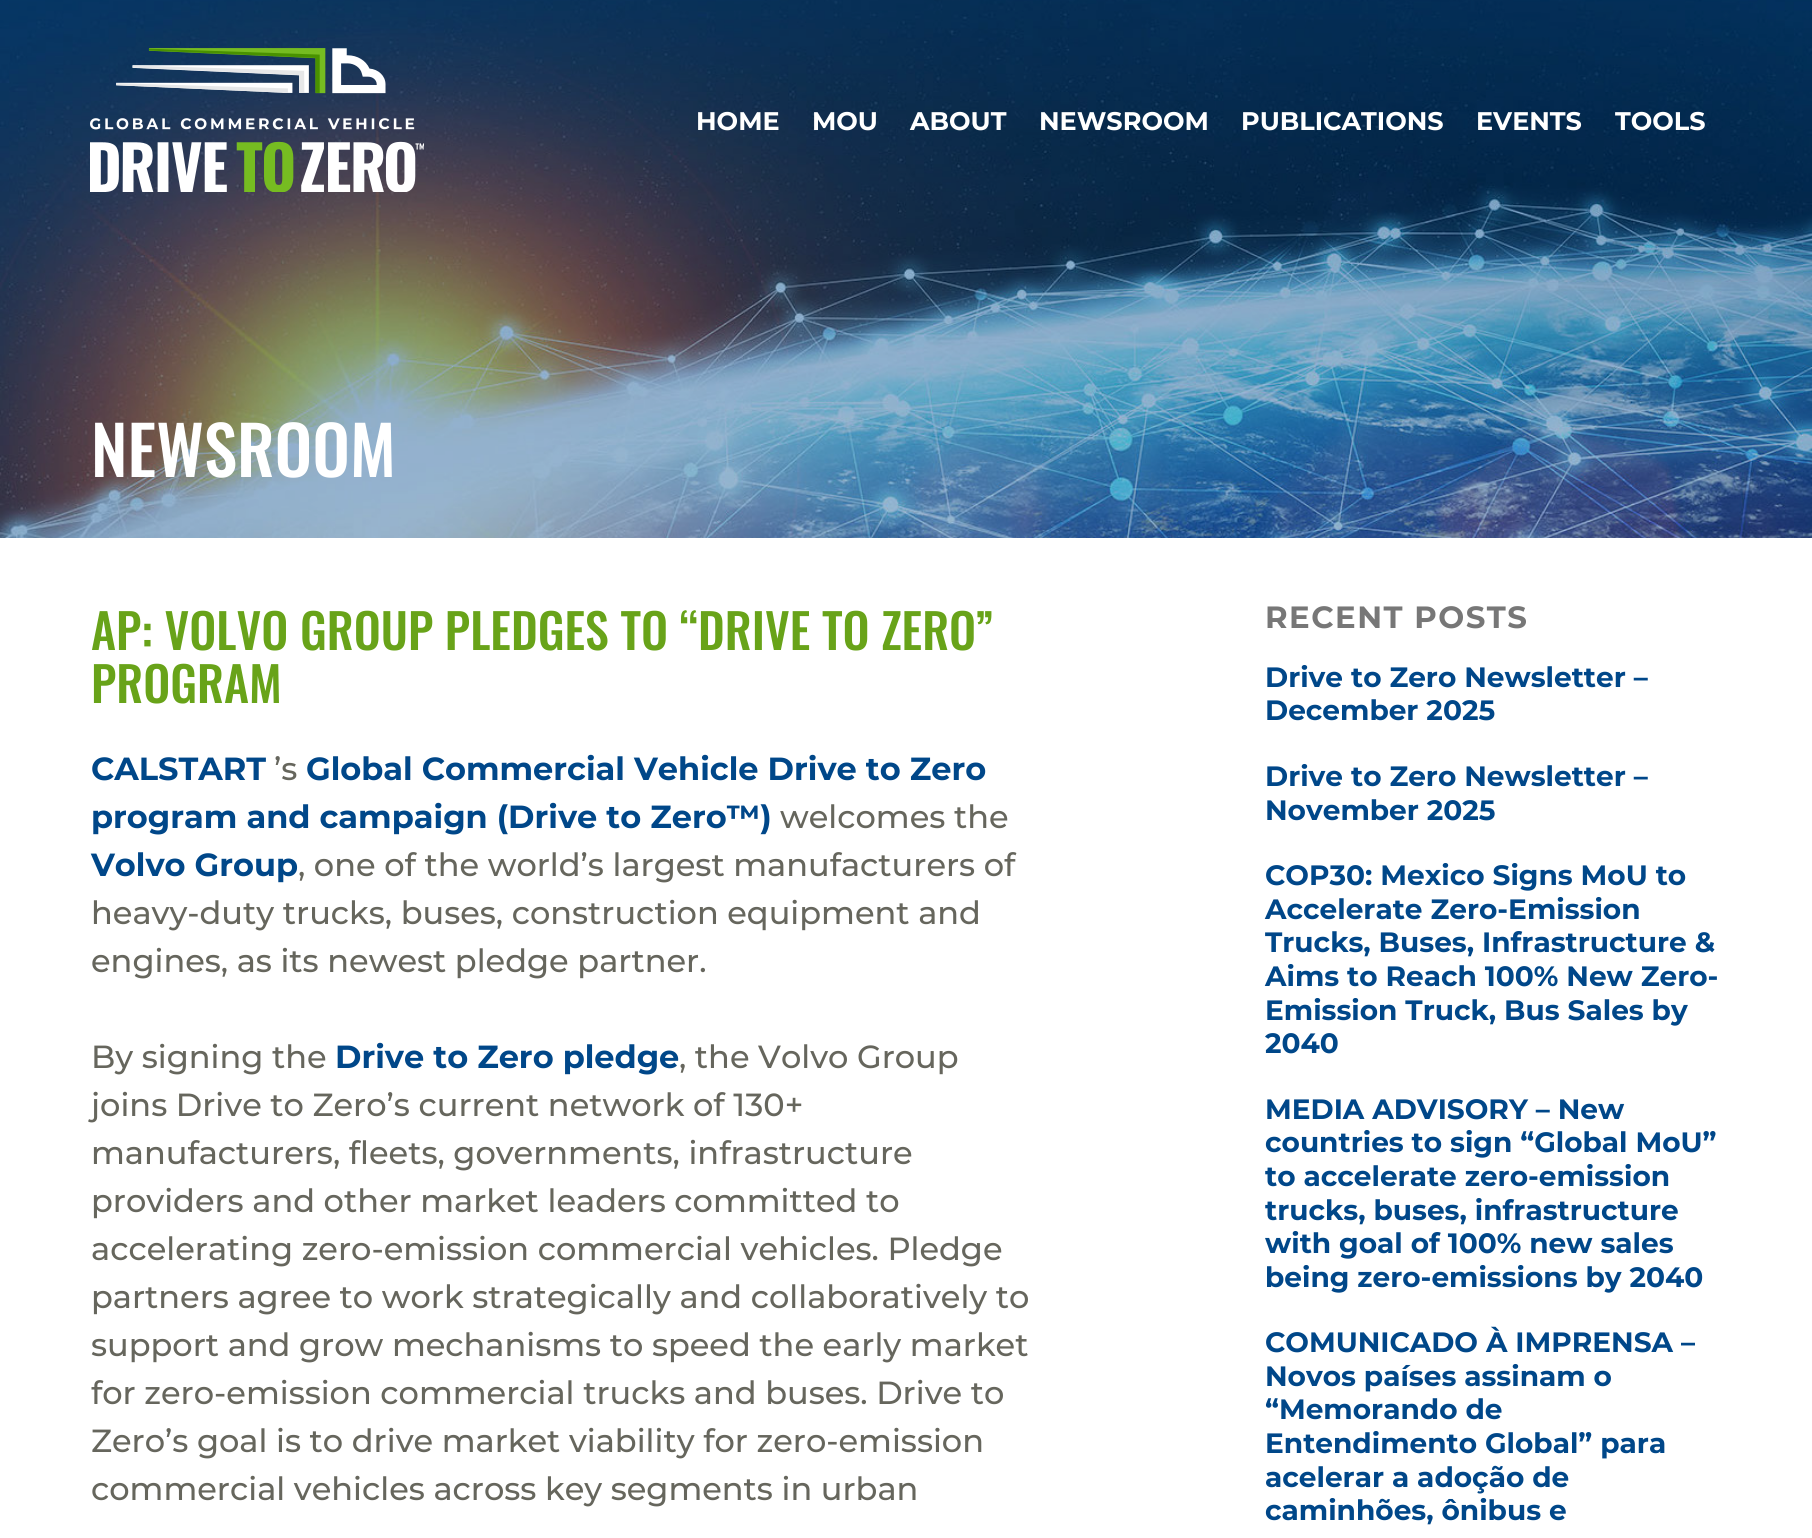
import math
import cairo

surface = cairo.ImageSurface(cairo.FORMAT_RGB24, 1812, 1538)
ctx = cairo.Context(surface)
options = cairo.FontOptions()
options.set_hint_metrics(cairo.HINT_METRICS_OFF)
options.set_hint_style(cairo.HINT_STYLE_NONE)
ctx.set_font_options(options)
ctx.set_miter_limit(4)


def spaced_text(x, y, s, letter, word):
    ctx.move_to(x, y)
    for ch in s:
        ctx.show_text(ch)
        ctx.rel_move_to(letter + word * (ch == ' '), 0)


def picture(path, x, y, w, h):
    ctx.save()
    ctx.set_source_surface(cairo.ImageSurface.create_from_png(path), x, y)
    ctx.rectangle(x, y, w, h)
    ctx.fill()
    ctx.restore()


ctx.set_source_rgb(1, 1, 1)
ctx.paint()
picture("img2.png", 0, 0, 1812, 538)
picture("img1.png", 90, 48, 334, 144)
ctx.select_font_face("Montserrat", cairo.FONT_SLANT_NORMAL, cairo.FONT_WEIGHT_BOLD)
ctx.set_font_size(25.5)
ctx.set_source_rgb(1, 1, 1)
ctx.move_to(696, 130)
ctx.show_text("HOME")
ctx.move_to(812, 130)
ctx.show_text("MOU")
ctx.move_to(910, 130)
ctx.show_text("ABOUT")
ctx.move_to(1039, 130)
ctx.show_text("NEWSROOM")
ctx.move_to(1241, 130)
ctx.show_text("PUBLICATIONS")
ctx.move_to(1476, 130)
ctx.show_text("EVENTS")
ctx.move_to(1615, 130)
ctx.show_text("TOOLS")
ctx.select_font_face("Oswald Medium")
ctx.set_font_size(67)
ctx.move_to(91, 477)
ctx.show_text("NEWSROOM")
ctx.set_font_size(48)
ctx.set_source_rgb(0.408, 0.639, 0.098)
ctx.move_to(91, 650)
ctx.show_text("AP: VOLVO GROUP PLEDGES TO “DRIVE TO ZERO”")
ctx.move_to(91, 703)
ctx.show_text("PROGRAM")
ctx.select_font_face("Montserrat", cairo.FONT_SLANT_NORMAL, cairo.FONT_WEIGHT_BOLD)
ctx.set_font_size(32)
ctx.set_source_rgb(0, 0.278, 0.537)
ctx.move_to(306, 780)
ctx.show_text("Global Commercial Vehicle Drive to Zero")
ctx.move_to(91, 828)
ctx.show_text("program and campaign (Drive to Zero™)")
ctx.move_to(91, 780)
ctx.show_text("CALSTART")
ctx.select_font_face("Montserrat Medium")
ctx.set_source_rgb(0.4, 0.4, 0.365)
ctx.move_to(274, 780)
ctx.show_text("’s")
ctx.move_to(780, 828)
ctx.show_text("welcomes the")
ctx.select_font_face("Montserrat", cairo.FONT_SLANT_NORMAL, cairo.FONT_WEIGHT_BOLD)
ctx.set_source_rgb(0, 0.278, 0.537)
ctx.move_to(91, 876)
ctx.show_text("Volvo Group")
ctx.select_font_face("Montserrat Medium")
ctx.set_source_rgb(0.4, 0.4, 0.365)
ctx.move_to(298, 876)
ctx.show_text(", one of the world’s largest manufacturers of")
ctx.move_to(91, 924)
ctx.show_text("heavy-duty trucks, buses, construction equipment and")
ctx.move_to(91, 972)
ctx.show_text("engines, as its newest pledge partner.")
ctx.move_to(91, 1068)
ctx.show_text("By signing the")
ctx.select_font_face("Montserrat", cairo.FONT_SLANT_NORMAL, cairo.FONT_WEIGHT_BOLD)
ctx.set_source_rgb(0, 0.278, 0.537)
ctx.move_to(335, 1068)
ctx.show_text("Drive to Zero pledge")
ctx.select_font_face("Montserrat Medium")
ctx.set_source_rgb(0.4, 0.4, 0.365)
ctx.move_to(679, 1068)
ctx.show_text(", the Volvo Group")
ctx.move_to(91, 1116)
ctx.show_text("joins Drive to Zero’s current network of 130+")
ctx.move_to(91, 1164)
ctx.show_text("manufacturers, fleets, governments, infrastructure")
ctx.move_to(91, 1212)
ctx.show_text("providers and other market leaders committed to")
ctx.move_to(91, 1260)
ctx.show_text("accelerating zero-emission commercial vehicles. Pledge")
ctx.move_to(91, 1308)
ctx.show_text("partners agree to work strategically and collaboratively to")
ctx.move_to(91, 1356)
ctx.show_text("support and grow mechanisms to speed the early market")
ctx.move_to(91, 1404)
ctx.show_text("for zero-emission commercial trucks and buses. Drive to")
ctx.move_to(91, 1452)
ctx.show_text("Zero’s goal is to drive market viability for zero-emission")
ctx.move_to(91, 1500)
ctx.show_text("commercial vehicles across key segments in urban")
ctx.select_font_face("Montserrat", cairo.FONT_SLANT_NORMAL, cairo.FONT_WEIGHT_BOLD)
ctx.set_font_size(30.75)
ctx.set_source_rgb(0.467, 0.467, 0.467)
spaced_text(1265, 628, "RECENT POSTS", 1.5, 0)
ctx.set_font_size(28)
ctx.set_source_rgb(0, 0.278, 0.537)
ctx.move_to(1265, 687)
ctx.show_text("Drive to Zero Newsletter –")
ctx.move_to(1265, 720)
ctx.show_text("December 2025")
ctx.move_to(1265, 786)
ctx.show_text("Drive to Zero Newsletter –")
ctx.move_to(1265, 820)
ctx.show_text("November 2025")
ctx.move_to(1265, 885)
ctx.show_text("COP30: Mexico Signs MoU to")
ctx.move_to(1265, 919)
ctx.show_text("Accelerate Zero-Emission")
ctx.move_to(1265, 952)
ctx.show_text("Trucks, Buses, Infrastructure &")
ctx.move_to(1265, 986)
ctx.show_text("Aims to Reach 100% New Zero-")
ctx.move_to(1265, 1020)
ctx.show_text("Emission Truck, Bus Sales by")
ctx.move_to(1265, 1053)
ctx.show_text("2040")
ctx.move_to(1265, 1119)
ctx.show_text("MEDIA ADVISORY – New")
ctx.move_to(1265, 1152)
ctx.show_text("countries to sign “Global MoU”")
ctx.move_to(1265, 1186)
ctx.show_text("to accelerate zero-emission")
ctx.move_to(1265, 1220)
ctx.show_text("trucks, buses, infrastructure")
ctx.move_to(1265, 1253)
ctx.show_text("with goal of 100% new sales")
ctx.move_to(1265, 1287)
ctx.show_text("being zero-emissions by 2040")
ctx.move_to(1265, 1352)
ctx.show_text("COMUNICADO À IMPRENSA –")
ctx.move_to(1265, 1386)
ctx.show_text("Novos países assinam o")
ctx.move_to(1265, 1419)
ctx.show_text("“Memorando de")
ctx.move_to(1265, 1453)
ctx.show_text("Entendimento Global” para")
ctx.move_to(1265, 1487)
ctx.show_text("acelerar a adoção de")
ctx.move_to(1265, 1520)
ctx.show_text("caminhões, ônibus e")
surface.write_to_png("page.png")
